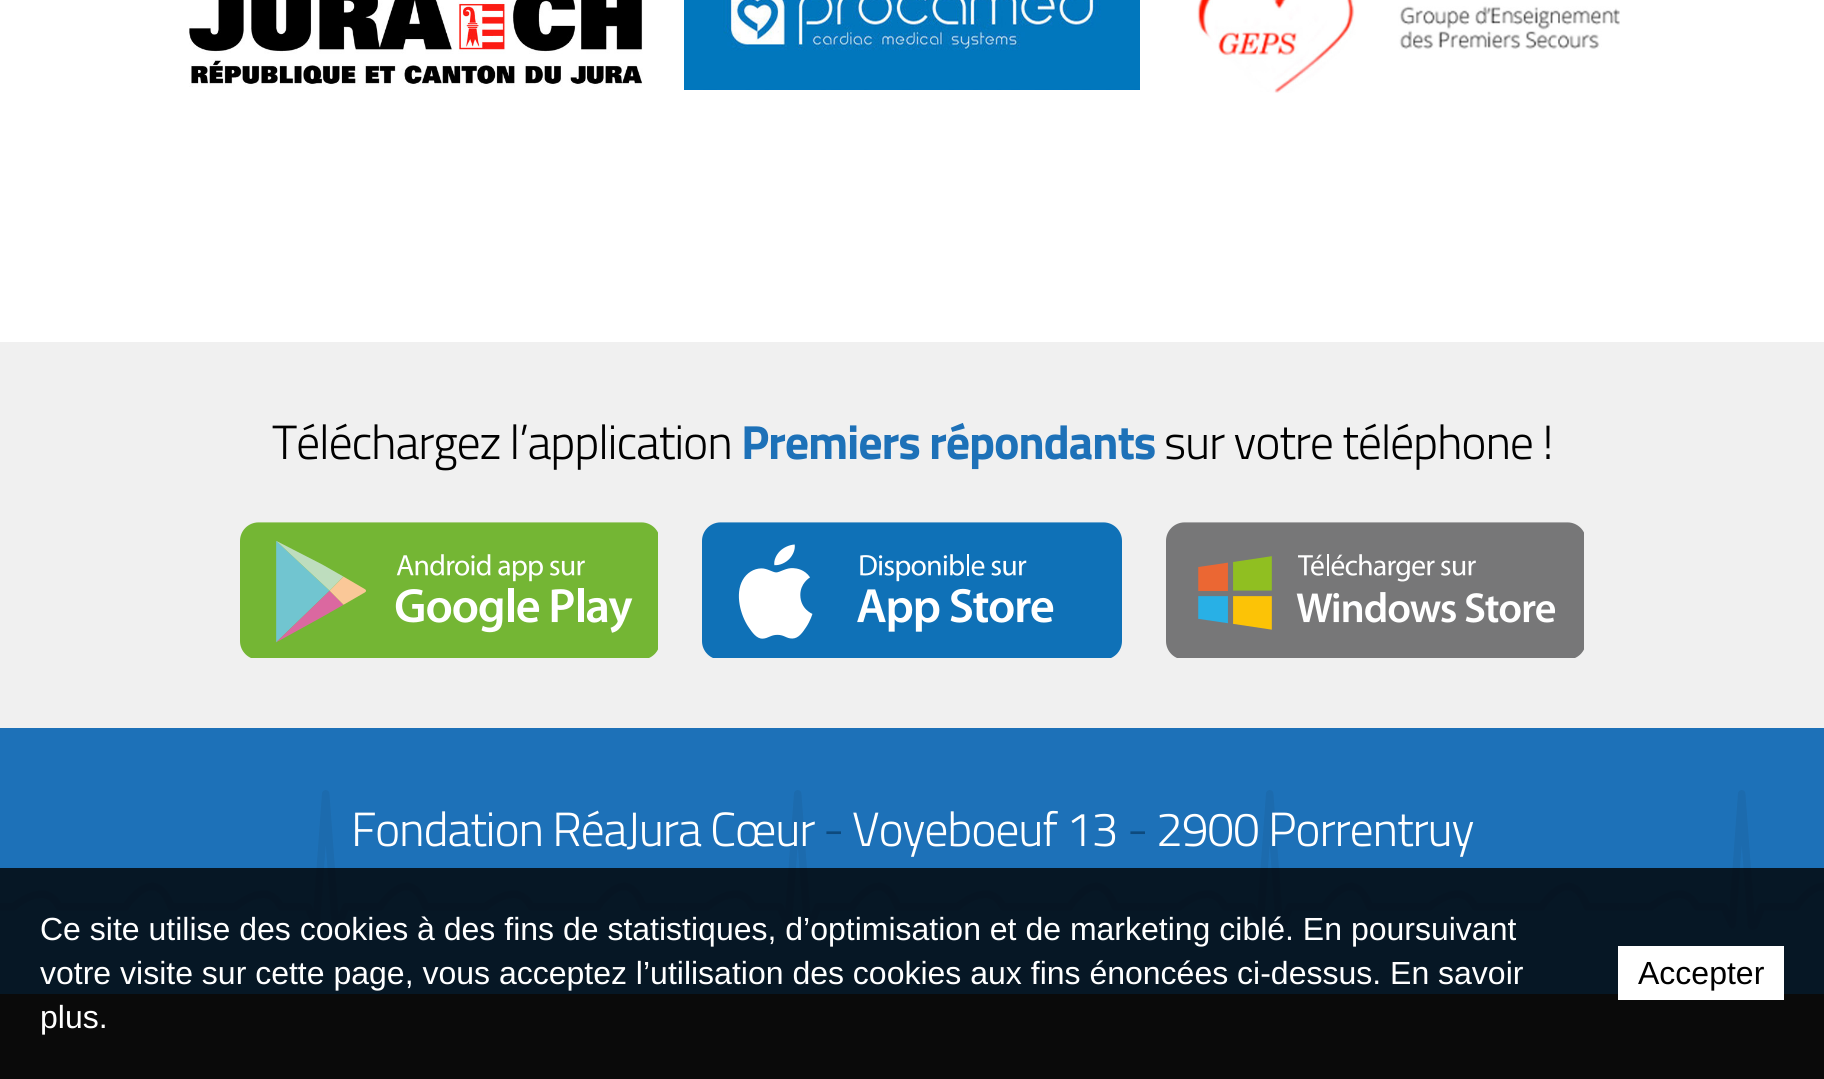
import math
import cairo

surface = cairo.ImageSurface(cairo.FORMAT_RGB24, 1824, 1079)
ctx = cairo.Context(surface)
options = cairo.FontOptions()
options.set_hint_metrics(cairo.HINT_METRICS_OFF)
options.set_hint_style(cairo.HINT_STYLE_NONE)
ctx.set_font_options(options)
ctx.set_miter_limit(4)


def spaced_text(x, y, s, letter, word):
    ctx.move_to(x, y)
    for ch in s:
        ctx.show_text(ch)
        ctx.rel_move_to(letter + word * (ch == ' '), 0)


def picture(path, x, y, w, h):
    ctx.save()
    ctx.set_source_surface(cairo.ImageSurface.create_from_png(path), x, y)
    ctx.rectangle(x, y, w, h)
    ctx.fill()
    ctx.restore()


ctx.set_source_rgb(1, 1, 1)
ctx.paint()
picture("img1.png", 189, 0, 454, 87)
picture("img2.png", 684, 0, 456, 90)
picture("img3.png", 1197, 0, 423, 93)
ctx.set_source_rgb(0.941, 0.941, 0.941)
ctx.rectangle(0, 342, 1824, 386)
ctx.fill()
ctx.select_font_face("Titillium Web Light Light")
ctx.set_font_size(48)
ctx.set_source_rgb(0, 0, 0)
spaced_text(272, 459, "Téléchargez l’application", -1.2, 0)
ctx.select_font_face("Titillium Web", cairo.FONT_SLANT_NORMAL, cairo.FONT_WEIGHT_BOLD)
ctx.set_source_rgb(0.114, 0.443, 0.722)
spaced_text(741, 459, "Premiers répondants", -1.2, 0)
ctx.select_font_face("Titillium Web Light Light")
ctx.set_source_rgb(0, 0, 0)
spaced_text(1164, 459, "sur votre téléphone !", -1.2, 0)
picture("img4.png", 240, 522, 418, 136)
picture("img5.png", 702, 522, 420, 136)
picture("img6.png", 1166, 522, 418, 136)
ctx.set_source_rgb(0.114, 0.443, 0.722)
ctx.rectangle(0, 728, 1824, 266)
ctx.fill()
picture("img7.png", 0, 790, 1824, 140)
ctx.set_source_rgb(1, 1, 1)
spaced_text(351, 846, "Fondation RéaJura Cœur", -1.2, 0)
ctx.set_source_rgb(0.051, 0.29, 0.494)
spaced_text(823, 846, "-", -1.2, 0)
ctx.set_source_rgb(1, 1, 1)
spaced_text(852, 846, "Voyeboeuf 13", -1.2, 0)
ctx.set_source_rgb(0.051, 0.29, 0.494)
spaced_text(1127, 846, "-", -1.2, 0)
ctx.set_source_rgb(1, 1, 1)
spaced_text(1156, 846, "2900 Porrentruy", -1.2, 0)
ctx.set_source_rgb(0.2, 0.2, 0.2)
ctx.rectangle(0, 994, 1824, 85)
ctx.fill()
ctx.set_source_rgba(0, 0, 0, 0.8)
ctx.rectangle(0, 868, 1824, 211)
ctx.fill()
ctx.select_font_face("Liberation Sans")
ctx.set_font_size(32)
ctx.set_source_rgb(1, 1, 1)
ctx.move_to(40, 940)
ctx.show_text("Ce site utilise des cookies à des fins de statistiques, d’optimisation et de marketing ciblé. En poursuivant")
ctx.move_to(40, 984)
ctx.show_text("votre visite sur cette page, vous acceptez l’utilisation des cookies aux fins énoncées ci-dessus. En savoir")
ctx.move_to(40, 1028)
ctx.show_text("plus.")
ctx.rectangle(1618, 946, 166, 54)
ctx.fill()
ctx.set_source_rgb(0, 0, 0)
ctx.move_to(1638, 984)
ctx.show_text("Accepter")
surface.write_to_png("page.png")
